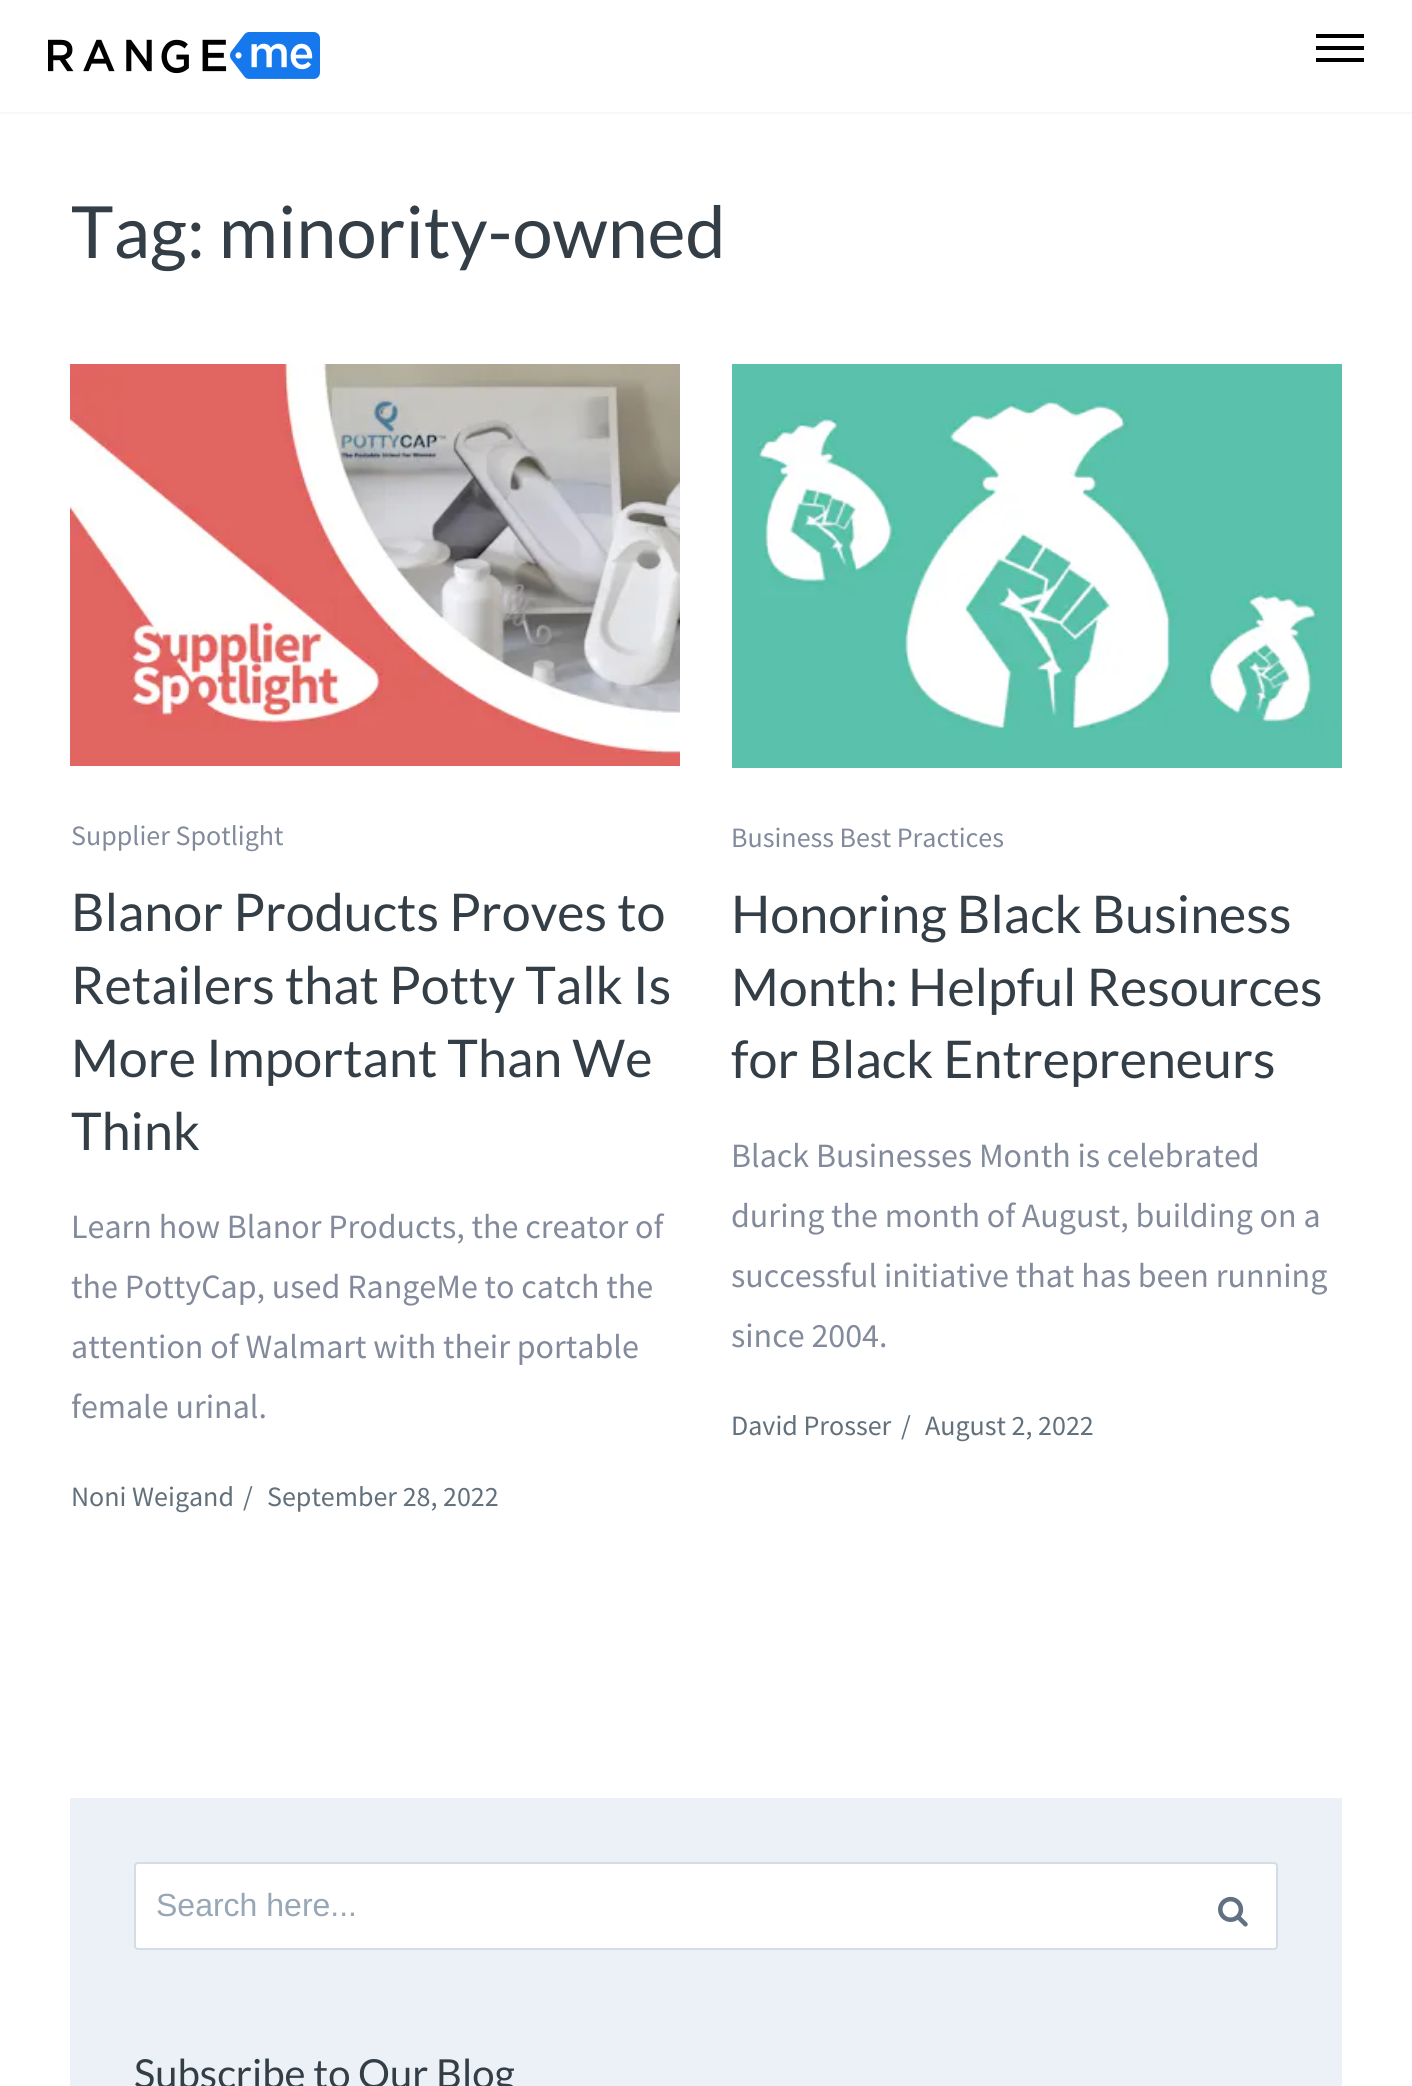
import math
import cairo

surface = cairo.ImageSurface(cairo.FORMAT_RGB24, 1412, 2086)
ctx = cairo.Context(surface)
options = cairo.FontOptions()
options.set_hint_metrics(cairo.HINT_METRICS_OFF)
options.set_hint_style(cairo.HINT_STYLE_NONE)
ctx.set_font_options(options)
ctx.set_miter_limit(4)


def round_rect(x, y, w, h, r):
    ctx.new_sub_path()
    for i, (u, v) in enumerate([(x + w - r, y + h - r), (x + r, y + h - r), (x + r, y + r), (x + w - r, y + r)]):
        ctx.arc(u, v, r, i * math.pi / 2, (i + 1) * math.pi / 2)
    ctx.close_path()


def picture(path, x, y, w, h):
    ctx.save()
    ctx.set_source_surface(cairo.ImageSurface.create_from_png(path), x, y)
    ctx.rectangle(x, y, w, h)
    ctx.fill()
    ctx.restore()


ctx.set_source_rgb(1, 1, 1)
ctx.paint()
ctx.set_source_rgb(0.965, 0.965, 0.973)
ctx.rectangle(0, 112, 1412, 2)
ctx.fill()
picture("img1.png", 48, 32, 272, 47)
ctx.set_source_rgb(0, 0, 0)
ctx.rectangle(1316, 34, 48, 4)
ctx.fill()
ctx.rectangle(1316, 46, 48, 4)
ctx.fill()
ctx.rectangle(1316, 58, 48, 4)
ctx.fill()
ctx.select_font_face("Lato")
ctx.set_font_size(72)
ctx.set_source_rgb(0.204, 0.243, 0.278)
ctx.move_to(71, 258)
ctx.show_text("Tag: minority-owned")
picture("img2.png", 70, 364, 610, 402)
ctx.select_font_face("Source Sans Pro")
ctx.set_font_size(28)
ctx.set_source_rgb(0.51, 0.541, 0.612)
ctx.move_to(71, 845)
ctx.show_text("Supplier Spotlight")
ctx.select_font_face("Lato")
ctx.set_font_size(52)
ctx.set_source_rgb(0.204, 0.243, 0.278)
ctx.move_to(71, 931)
ctx.show_text("Blanor Products Proves to")
ctx.move_to(71, 1004)
ctx.show_text("Retailers that Potty Talk Is")
ctx.move_to(71, 1077)
ctx.show_text("More Important Than We")
ctx.move_to(71, 1150)
ctx.show_text("Think")
ctx.select_font_face("Source Sans Pro")
ctx.set_font_size(34)
ctx.set_source_rgb(0.51, 0.541, 0.612)
ctx.move_to(71, 1238)
ctx.show_text("Learn how Blanor Products, the creator of")
ctx.move_to(71, 1298)
ctx.show_text("the PottyCap, used RangeMe to catch the")
ctx.move_to(71, 1358)
ctx.show_text("attention of Walmart with their portable")
ctx.move_to(71, 1418)
ctx.show_text("female urinal.")
ctx.set_font_size(28)
ctx.set_source_rgb(0.384, 0.439, 0.486)
ctx.move_to(71, 1506)
ctx.show_text("Noni Weigand")
ctx.move_to(243, 1506)
ctx.show_text("/")
ctx.move_to(267, 1506)
ctx.show_text("September 28, 2022")
picture("img3.png", 732, 364, 610, 404)
ctx.set_source_rgb(0.51, 0.541, 0.612)
ctx.move_to(731, 847)
ctx.show_text("Business Best Practices")
ctx.select_font_face("Lato")
ctx.set_font_size(52)
ctx.set_source_rgb(0.204, 0.243, 0.278)
ctx.move_to(731, 933)
ctx.show_text("Honoring Black Business")
ctx.move_to(731, 1006)
ctx.show_text("Month: Helpful Resources")
ctx.move_to(731, 1078)
ctx.show_text("for Black Entrepreneurs")
ctx.select_font_face("Source Sans Pro")
ctx.set_font_size(34)
ctx.set_source_rgb(0.51, 0.541, 0.612)
ctx.move_to(731, 1167)
ctx.show_text("Black Businesses Month is celebrated")
ctx.move_to(731, 1227)
ctx.show_text("during the month of August, building on a")
ctx.move_to(731, 1287)
ctx.show_text("successful initiative that has been running")
ctx.move_to(731, 1347)
ctx.show_text("since 2004.")
ctx.set_font_size(28)
ctx.set_source_rgb(0.384, 0.439, 0.486)
ctx.move_to(731, 1435)
ctx.show_text("David Prosser")
ctx.move_to(901, 1435)
ctx.show_text("/")
ctx.move_to(925, 1435)
ctx.show_text("August 2, 2022")
ctx.set_source_rgb(0.925, 0.945, 0.969)
ctx.rectangle(70, 1798, 1272, 288)
ctx.fill()
ctx.set_source_rgb(1, 1, 1)
round_rect(135, 1863, 1142, 86, 3)
ctx.fill_preserve()
ctx.set_source_rgb(0.831, 0.867, 0.898)
ctx.stroke()
ctx.select_font_face("Liberation Sans")
ctx.set_font_size(32)
ctx.set_source_rgb(0.592, 0.655, 0.71)
ctx.move_to(156, 1916)
ctx.show_text("Search here...")
picture("img4.png", 1218, 1896, 30, 31)
ctx.select_font_face("Lato")
ctx.set_font_size(40)
ctx.set_source_rgb(0.204, 0.243, 0.278)
ctx.move_to(134, 2088)
ctx.show_text("Subscribe to Our Blog")
surface.write_to_png("page.png")
